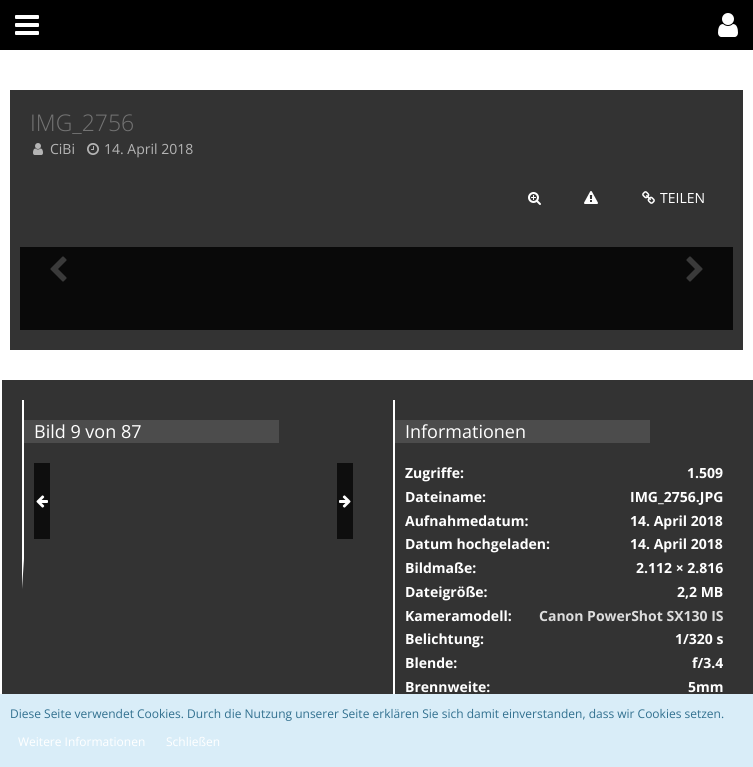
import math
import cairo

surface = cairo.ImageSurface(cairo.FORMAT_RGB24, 753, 767)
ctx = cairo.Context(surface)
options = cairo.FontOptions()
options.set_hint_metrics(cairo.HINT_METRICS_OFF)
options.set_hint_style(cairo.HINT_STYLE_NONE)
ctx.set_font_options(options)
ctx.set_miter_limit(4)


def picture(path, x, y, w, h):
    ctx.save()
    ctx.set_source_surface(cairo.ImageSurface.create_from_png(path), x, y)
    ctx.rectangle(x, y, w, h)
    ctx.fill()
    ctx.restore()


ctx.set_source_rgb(1, 1, 1)
ctx.paint()
ctx.set_source_rgb(0, 0, 0)
ctx.rectangle(0, 0, 753, 50)
ctx.fill()
picture("img1.png", 15, 15, 24, 20)
picture("img2.png", 718, 13, 20, 24)
ctx.set_source_rgb(0.2, 0.2, 0.2)
ctx.rectangle(10, 90, 733, 260)
ctx.fill()
ctx.select_font_face("Open Sans Light")
ctx.set_font_size(23)
ctx.set_source_rgb(0.451, 0.451, 0.451)
ctx.move_to(30, 131)
ctx.show_text("IMG_2756")
picture("img3.png", 33, 143, 10, 12)
ctx.select_font_face("Open Sans")
ctx.set_font_size(14)
ctx.set_source_rgb(0.706, 0.706, 0.706)
ctx.move_to(50, 154)
ctx.show_text("CiBi")
picture("img4.png", 87, 143, 12, 12)
ctx.move_to(104, 154)
ctx.show_text("14. April 2018")
picture("img5.png", 528, 192, 13, 13)
picture("img6.png", 584, 191, 14, 13)
picture("img7.png", 642, 191, 13, 13)
ctx.set_source_rgb(1, 1, 1)
ctx.move_to(660, 203)
ctx.show_text("TEILEN")
ctx.set_source_rgb(0.039, 0.039, 0.039)
ctx.rectangle(20, 247, 713, 83)
ctx.fill()
picture("img8.png", 50, 256, 17, 26)
picture("img9.png", 686, 256, 17, 26)
ctx.set_source_rgb(0.2, 0.2, 0.2)
ctx.rectangle(2, 380, 751, 314)
ctx.fill()
ctx.set_source_rgb(1, 1, 1)
ctx.new_path()
ctx.move_to(22, 589)
ctx.line_to(22, 400)
ctx.line_to(24, 400)
ctx.line_to(24, 559)
ctx.close_path()
ctx.fill()
ctx.set_source_rgb(0.298, 0.298, 0.298)
ctx.rectangle(24, 420, 255, 23)
ctx.fill()
ctx.set_font_size(18)
ctx.set_source_rgb(1, 1, 1)
ctx.move_to(34, 438)
ctx.show_text("Bild 9 von 87")
ctx.set_source_rgb(0.055, 0.055, 0.055)
ctx.rectangle(34, 463, 16, 76)
ctx.fill()
picture("img10.png", 36, 495, 12, 13)
ctx.rectangle(337, 463, 16, 76)
ctx.fill()
picture("img11.png", 339, 495, 12, 13)
ctx.set_source_rgb(1, 1, 1)
ctx.new_path()
ctx.move_to(393, 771)
ctx.line_to(393, 400)
ctx.line_to(395, 400)
ctx.line_to(395, 741)
ctx.close_path()
ctx.fill()
ctx.set_source_rgb(0.298, 0.298, 0.298)
ctx.rectangle(395, 420, 255, 23)
ctx.fill()
ctx.set_source_rgb(1, 1, 1)
ctx.move_to(405, 438)
ctx.show_text("Informationen")
ctx.select_font_face("Open Sans", cairo.FONT_SLANT_NORMAL, cairo.FONT_WEIGHT_BOLD)
ctx.set_font_size(14)
ctx.move_to(405, 478)
ctx.show_text("Zugriffe:")
ctx.move_to(687, 478)
ctx.show_text("1.509")
ctx.move_to(405, 502)
ctx.show_text("Dateiname:")
ctx.move_to(630, 502)
ctx.show_text("IMG_2756.JPG")
ctx.move_to(405, 526)
ctx.show_text("Aufnahmedatum:")
ctx.move_to(630, 526)
ctx.show_text("14. April 2018")
ctx.move_to(405, 549)
ctx.show_text("Datum hochgeladen:")
ctx.move_to(630, 549)
ctx.show_text("14. April 2018")
ctx.move_to(405, 573)
ctx.show_text("Bildmaße:")
ctx.move_to(636, 573)
ctx.show_text("2.112 × 2.816")
ctx.move_to(405, 597)
ctx.show_text("Dateigröße:")
ctx.move_to(677, 597)
ctx.show_text("2,2 MB")
ctx.move_to(405, 621)
ctx.show_text("Kameramodell:")
ctx.set_source_rgb(0.867, 0.867, 0.867)
ctx.move_to(539, 621)
ctx.show_text("Canon PowerShot SX130 IS")
ctx.set_source_rgb(1, 1, 1)
ctx.move_to(405, 644)
ctx.show_text("Belichtung:")
ctx.move_to(675, 644)
ctx.show_text("1/320 s")
ctx.move_to(405, 668)
ctx.show_text("Blende:")
ctx.move_to(692, 668)
ctx.show_text("f/3.4")
ctx.move_to(405, 692)
ctx.show_text("Brennweite:")
ctx.move_to(688, 692)
ctx.show_text("5mm")
ctx.set_source_rgb(0.851, 0.929, 0.969)
ctx.rectangle(0, 694, 753, 73)
ctx.fill()
ctx.select_font_face("Open Sans")
ctx.set_font_size(12)
ctx.set_source_rgb(0.192, 0.439, 0.561)
ctx.move_to(10, 718)
ctx.show_text("Diese Seite verwendet Cookies. Durch die Nutzung unserer Seite erklären Sie sich damit einverstanden, dass wir Cookies setzen.")
ctx.set_source_rgb(1, 1, 1)
ctx.move_to(18, 746)
ctx.show_text("Weitere Informationen")
ctx.move_to(166, 746)
ctx.show_text("Schließen")
surface.write_to_png("page.png")
